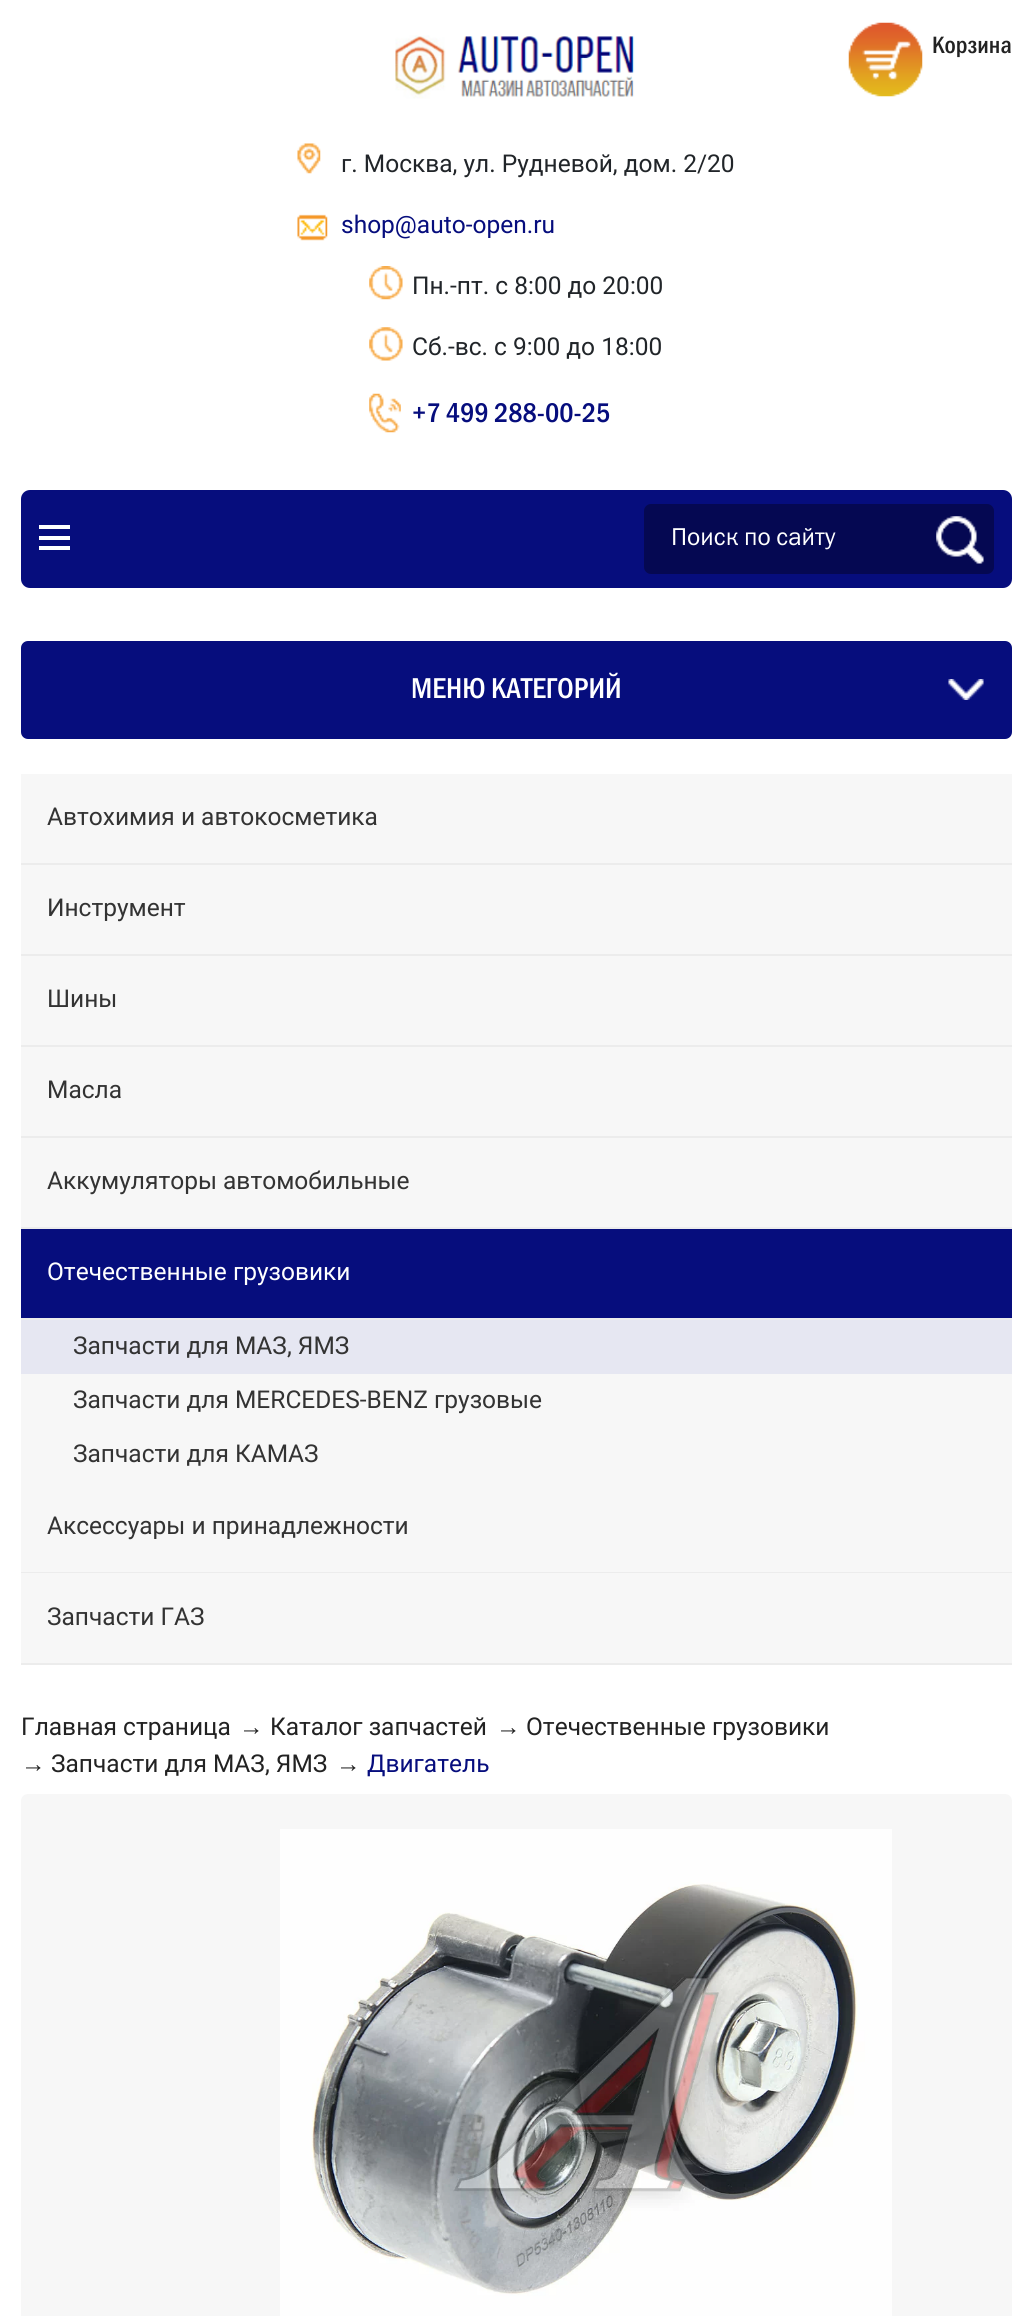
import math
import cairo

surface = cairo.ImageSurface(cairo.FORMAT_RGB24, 1032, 2316)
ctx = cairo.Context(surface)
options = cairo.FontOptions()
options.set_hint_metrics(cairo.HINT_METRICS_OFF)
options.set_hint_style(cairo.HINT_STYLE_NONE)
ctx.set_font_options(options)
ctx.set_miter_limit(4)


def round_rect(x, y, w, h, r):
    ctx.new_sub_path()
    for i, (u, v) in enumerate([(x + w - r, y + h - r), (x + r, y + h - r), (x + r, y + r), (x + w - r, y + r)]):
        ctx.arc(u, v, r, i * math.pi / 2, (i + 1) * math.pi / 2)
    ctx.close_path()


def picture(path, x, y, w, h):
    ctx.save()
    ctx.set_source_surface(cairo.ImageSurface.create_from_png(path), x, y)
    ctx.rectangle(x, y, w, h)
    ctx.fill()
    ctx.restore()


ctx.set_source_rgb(1, 1, 1)
ctx.paint()
picture("img1.png", 848, 22, 75, 75)
ctx.select_font_face("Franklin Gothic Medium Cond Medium")
ctx.set_font_size(24.5)
ctx.set_source_rgb(0.133, 0.133, 0.133)
ctx.move_to(932, 53)
ctx.show_text("Корзина")
picture("img2.png", 395, 35, 240, 64)
picture("img3.png", 297, 143, 24, 31)
ctx.select_font_face("Roboto")
ctx.set_source_rgb(0.129, 0.145, 0.161)
ctx.move_to(341, 172)
ctx.show_text("г. Москва, ул. Рудневой, дом. 2/20")
picture("img4.png", 297, 214, 31, 27)
ctx.set_source_rgb(0.027, 0.051, 0.49)
ctx.move_to(341, 233)
ctx.show_text("shop@auto-open.ru")
picture("img5.png", 369, 266, 34, 34)
ctx.set_source_rgb(0.129, 0.145, 0.161)
ctx.move_to(412, 294)
ctx.show_text("Пн.-пт. с 8:00 до 20:00")
picture("img6.png", 369, 327, 34, 34)
ctx.move_to(412, 355)
ctx.show_text("Сб.-вс. с 9:00 до 18:00")
picture("img7.png", 369, 393, 32, 40)
ctx.select_font_face("Franklin Gothic Medium Cond Medium")
ctx.set_font_size(28)
ctx.set_source_rgb(0.027, 0.051, 0.49)
ctx.move_to(412, 422)
ctx.show_text("+7 499 288-00-25")
round_rect(21, 490, 991, 98, 9)
ctx.fill()
ctx.set_source_rgb(1, 1, 1)
ctx.rectangle(39, 525, 31, 4)
ctx.fill()
ctx.rectangle(39, 536, 31, 4)
ctx.fill()
ctx.rectangle(39, 546, 31, 4)
ctx.fill()
ctx.set_source_rgb(0.02, 0.035, 0.322)
round_rect(644, 504, 350, 70, 7)
ctx.fill()
ctx.select_font_face("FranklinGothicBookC")
ctx.set_font_size(24.5)
ctx.set_source_rgb(1, 1, 1)
ctx.move_to(671, 545)
ctx.show_text("Поиск по сайту")
picture("img8.png", 936, 516, 48, 48)
ctx.set_source_rgb(0.027, 0.051, 0.49)
round_rect(21, 641, 991, 98, 7)
ctx.fill()
picture("img9.png", 948, 679, 36, 21)
ctx.select_font_face("Franklin Gothic Medium Cond Medium")
ctx.set_font_size(29.75)
ctx.set_source_rgb(1, 1, 1)
ctx.move_to(411, 698)
ctx.show_text("МЕНЮ КАТЕГОРИЙ")
ctx.set_source_rgb(0.965, 0.965, 0.965)
ctx.rectangle(21, 774, 991, 89)
ctx.fill()
ctx.set_source_rgb(0.925, 0.925, 0.925)
ctx.rectangle(21, 863, 991, 2)
ctx.fill()
ctx.select_font_face("Roboto")
ctx.set_font_size(24.5)
ctx.set_source_rgb(0.2, 0.2, 0.2)
ctx.move_to(47, 825)
ctx.show_text("Автохимия и автокосметика")
ctx.set_source_rgb(0.965, 0.965, 0.965)
ctx.rectangle(21, 865, 991, 89)
ctx.fill()
ctx.set_source_rgb(0.925, 0.925, 0.925)
ctx.rectangle(21, 954, 991, 2)
ctx.fill()
ctx.set_source_rgb(0.2, 0.2, 0.2)
ctx.move_to(47, 916)
ctx.show_text("Инструмент")
ctx.set_source_rgb(0.965, 0.965, 0.965)
ctx.rectangle(21, 956, 991, 89)
ctx.fill()
ctx.set_source_rgb(0.925, 0.925, 0.925)
ctx.rectangle(21, 1045, 991, 2)
ctx.fill()
ctx.set_source_rgb(0.2, 0.2, 0.2)
ctx.move_to(47, 1007)
ctx.show_text("Шины")
ctx.set_source_rgb(0.965, 0.965, 0.965)
ctx.rectangle(21, 1047, 991, 89)
ctx.fill()
ctx.set_source_rgb(0.925, 0.925, 0.925)
ctx.rectangle(21, 1136, 991, 2)
ctx.fill()
ctx.set_source_rgb(0.2, 0.2, 0.2)
ctx.move_to(47, 1098)
ctx.show_text("Масла")
ctx.set_source_rgb(0.965, 0.965, 0.965)
ctx.rectangle(21, 1138, 991, 89)
ctx.fill()
ctx.set_source_rgb(0.925, 0.925, 0.925)
ctx.rectangle(21, 1227, 991, 2)
ctx.fill()
ctx.set_source_rgb(0.2, 0.2, 0.2)
ctx.move_to(47, 1189)
ctx.show_text("Аккумуляторы автомобильные")
ctx.set_source_rgb(0.027, 0.051, 0.49)
ctx.rectangle(21, 1229, 991, 89)
ctx.fill()
ctx.set_source_rgb(0.925, 0.925, 0.925)
ctx.rectangle(21, 1318, 991, 2)
ctx.fill()
ctx.set_source_rgb(1, 1, 1)
ctx.move_to(47, 1280)
ctx.show_text("Отечественные грузовики")
ctx.set_source_rgb(0.902, 0.906, 0.949)
ctx.rectangle(21, 1320, 991, 54)
ctx.fill()
ctx.set_source_rgb(0.2, 0.2, 0.2)
ctx.move_to(73, 1354)
ctx.show_text("Запчасти для МАЗ, ЯМЗ")
ctx.set_source_rgb(0.965, 0.965, 0.965)
ctx.rectangle(21, 1374, 991, 198)
ctx.fill()
ctx.set_source_rgb(0.2, 0.2, 0.2)
ctx.move_to(73, 1408)
ctx.show_text("Запчасти для MERCEDES-BENZ грузовые")
ctx.move_to(73, 1462)
ctx.show_text("Запчасти для КАМАЗ")
ctx.set_source_rgb(0.925, 0.925, 0.925)
ctx.rectangle(21, 1572, 991, 1)
ctx.fill()
ctx.set_source_rgb(0.2, 0.2, 0.2)
ctx.move_to(47, 1534)
ctx.show_text("Аксессуары и принадлежности")
ctx.set_source_rgb(0.965, 0.965, 0.965)
ctx.rectangle(21, 1573, 991, 90)
ctx.fill()
ctx.set_source_rgb(0.925, 0.925, 0.925)
ctx.rectangle(21, 1663, 991, 2)
ctx.fill()
ctx.set_source_rgb(0.2, 0.2, 0.2)
ctx.move_to(47, 1625)
ctx.show_text("Запчасти ГАЗ")
ctx.set_source_rgb(0.133, 0.133, 0.133)
ctx.move_to(21, 1735)
ctx.show_text("Главная страница")
ctx.select_font_face("Liberation Sans")
ctx.move_to(239, 1735)
ctx.show_text("→")
ctx.select_font_face("Roboto")
ctx.move_to(270, 1735)
ctx.show_text("Каталог запчастей")
ctx.select_font_face("Liberation Sans")
ctx.move_to(496, 1735)
ctx.show_text("→")
ctx.select_font_face("Roboto")
ctx.move_to(526, 1735)
ctx.show_text("Отечественные грузовики")
ctx.select_font_face("Liberation Sans")
ctx.move_to(21, 1772)
ctx.show_text("→")
ctx.select_font_face("Roboto")
ctx.move_to(51, 1772)
ctx.show_text("Запчасти для МАЗ, ЯМЗ")
ctx.select_font_face("Liberation Sans")
ctx.move_to(336, 1772)
ctx.show_text("→")
ctx.select_font_face("Roboto")
ctx.set_source_rgb(0.027, 0.051, 0.49)
ctx.move_to(367, 1772)
ctx.show_text("Двигатель")
ctx.set_source_rgb(0.965, 0.965, 0.965)
round_rect(21, 1794, 991, 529, 7)
ctx.fill()
picture("img10.png", 280, 1829, 612, 487)
surface.write_to_png("page.png")
